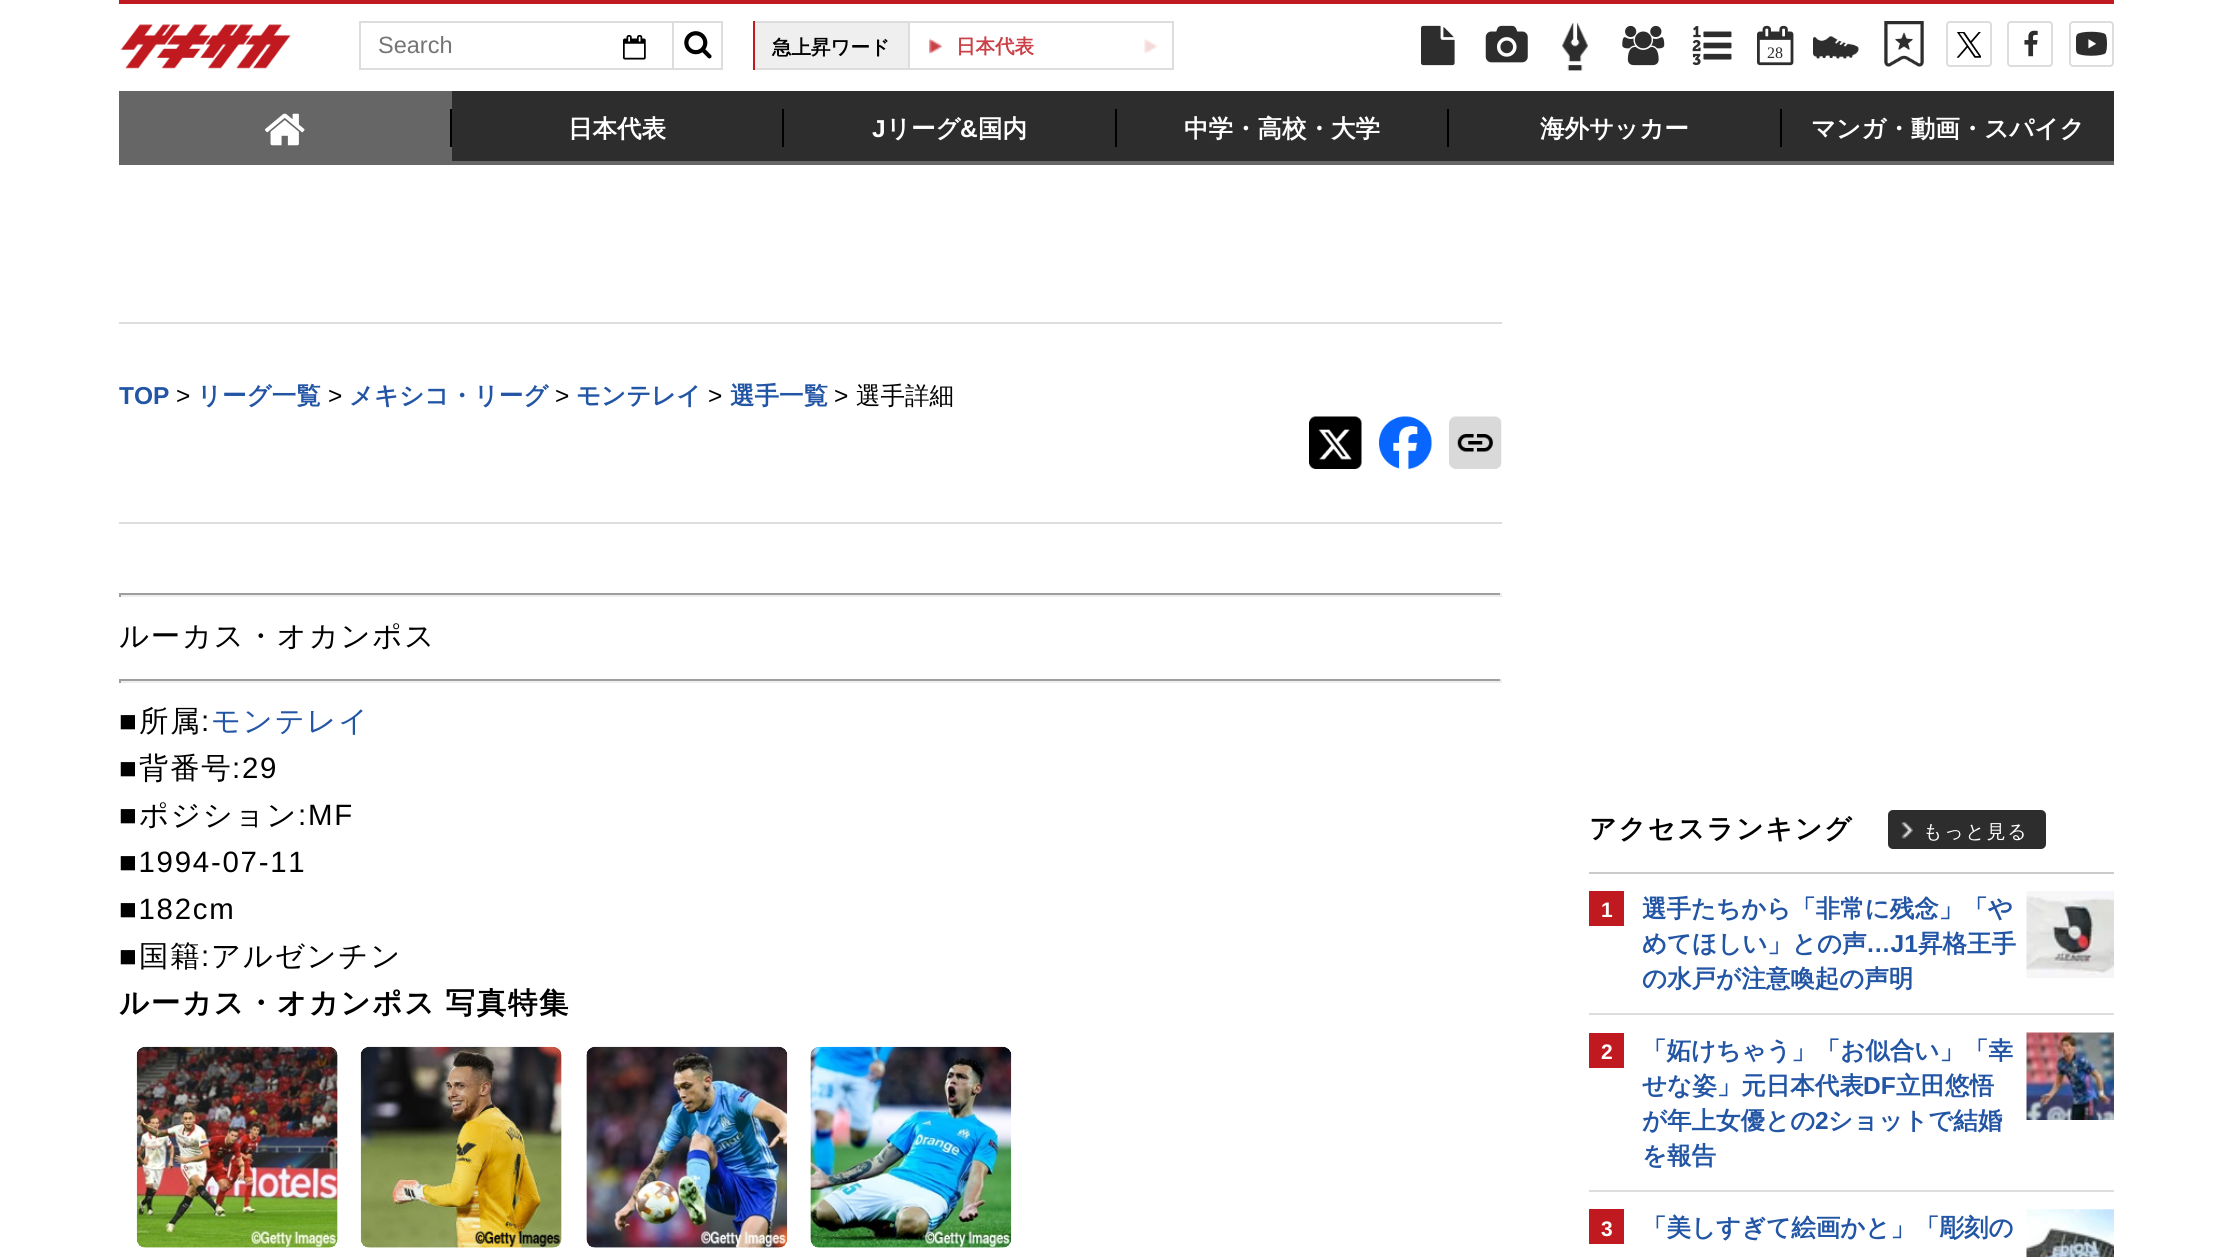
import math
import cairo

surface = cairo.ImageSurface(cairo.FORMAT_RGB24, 2233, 1257)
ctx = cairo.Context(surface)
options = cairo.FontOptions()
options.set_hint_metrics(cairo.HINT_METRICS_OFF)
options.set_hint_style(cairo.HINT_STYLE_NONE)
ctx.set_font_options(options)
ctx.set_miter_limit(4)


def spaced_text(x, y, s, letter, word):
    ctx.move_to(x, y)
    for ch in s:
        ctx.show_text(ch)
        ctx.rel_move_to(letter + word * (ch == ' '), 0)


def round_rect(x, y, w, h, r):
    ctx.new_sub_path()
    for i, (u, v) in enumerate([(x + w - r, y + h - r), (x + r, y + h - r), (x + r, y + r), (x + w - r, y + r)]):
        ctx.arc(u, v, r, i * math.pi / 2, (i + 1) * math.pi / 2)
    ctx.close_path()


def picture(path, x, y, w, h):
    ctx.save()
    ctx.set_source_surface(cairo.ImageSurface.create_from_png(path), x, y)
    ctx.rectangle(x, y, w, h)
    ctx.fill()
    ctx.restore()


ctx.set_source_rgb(1, 1, 1)
ctx.paint()
ctx.set_source_rgb(0.753, 0.098, 0.125)
ctx.rectangle(119, 0, 1995, 4)
ctx.fill()
picture("img1.png", 120, 24, 171, 45)
ctx.rectangle(360, 22, 313, 47)
ctx.set_source_rgb(0.867, 0.867, 0.867)
ctx.stroke()
ctx.select_font_face("Liberation Sans")
ctx.set_font_size(23.5)
ctx.set_source_rgb(0.459, 0.459, 0.459)
ctx.move_to(378, 53)
ctx.show_text("Search")
picture("img2.png", 623, 35, 23, 25)
ctx.set_source_rgb(0.867, 0.867, 0.867)
ctx.rectangle(674, 21, 49, 2)
ctx.fill()
ctx.rectangle(721, 21, 2, 49)
ctx.fill()
ctx.rectangle(674, 68, 49, 2)
ctx.fill()
picture("img3.png", 684, 31, 28, 28)
ctx.set_source_rgb(0.937, 0.937, 0.937)
ctx.rectangle(755, 23, 153, 45)
ctx.fill()
ctx.set_source_rgb(0.867, 0.867, 0.867)
ctx.rectangle(753, 21, 155, 2)
ctx.fill()
ctx.rectangle(753, 68, 155, 2)
ctx.fill()
ctx.set_source_rgb(0.753, 0.098, 0.125)
ctx.rectangle(753, 21, 2, 49)
ctx.fill()
ctx.select_font_face("WenQuanYi Zen Hei", cairo.FONT_SLANT_NORMAL, cairo.FONT_WEIGHT_BOLD)
ctx.set_font_size(19.5)
ctx.set_source_rgb(0, 0, 0)
ctx.move_to(772, 54)
ctx.show_text("急上昇ワード")
ctx.rectangle(909, 22, 264, 47)
ctx.set_source_rgb(0.867, 0.867, 0.867)
ctx.stroke()
picture("img4.png", 929, 38, 13, 16)
ctx.set_source_rgb(0.796, 0.251, 0.275)
ctx.move_to(956, 53)
ctx.show_text("日本代表")
picture("img5.png", 1144, 39, 13, 15)
picture("img6.png", 1421, 25, 34, 41)
picture("img7.png", 1485, 25, 43, 38)
picture("img8.png", 1562, 23, 26, 48)
picture("img9.png", 1622, 25, 43, 41)
picture("img10.png", 1692, 26, 40, 40)
picture("img11.png", 1757, 25, 37, 41)
ctx.select_font_face("Liberation Serif")
ctx.set_font_size(16)
ctx.set_source_rgb(0.176, 0.176, 0.176)
ctx.move_to(1767, 58)
ctx.show_text("28")
picture("img12.png", 1813, 36, 46, 23)
picture("img13.png", 1884, 21, 40, 46)
round_rect(1947, 22, 44, 44, 3)
ctx.set_source_rgb(0.867, 0.867, 0.867)
ctx.stroke()
picture("img14.png", 1957, 32, 24, 26)
round_rect(2008, 22, 44, 44, 3)
ctx.stroke()
picture("img15.png", 2024, 30, 14, 27)
round_rect(2070, 22, 43, 44, 3)
ctx.stroke()
picture("img16.png", 2076, 31, 31, 25)
ctx.set_source_rgb(0.4, 0.4, 0.4)
ctx.rectangle(119, 161, 1995, 4)
ctx.fill()
ctx.rectangle(119, 91, 333, 70)
ctx.fill()
ctx.set_source_rgb(0, 0, 0)
ctx.rectangle(450, 109, 2, 38)
ctx.fill()
picture("img17.png", 264, 113, 41, 33)
ctx.set_source_rgb(0.176, 0.176, 0.176)
ctx.rectangle(452, 91, 1662, 70)
ctx.fill()
ctx.set_source_rgb(0, 0, 0)
ctx.rectangle(782, 109, 2, 38)
ctx.fill()
ctx.select_font_face("WenQuanYi Zen Hei", cairo.FONT_SLANT_NORMAL, cairo.FONT_WEIGHT_BOLD)
ctx.set_font_size(24.5)
ctx.set_source_rgb(1, 1, 1)
ctx.move_to(568, 137)
ctx.show_text("日本代表")
ctx.set_source_rgb(0, 0, 0)
ctx.rectangle(1115, 109, 2, 38)
ctx.fill()
ctx.select_font_face("Liberation Sans", cairo.FONT_SLANT_NORMAL, cairo.FONT_WEIGHT_BOLD)
ctx.set_source_rgb(1, 1, 1)
ctx.move_to(872, 137)
ctx.show_text("J")
ctx.select_font_face("WenQuanYi Zen Hei", cairo.FONT_SLANT_NORMAL, cairo.FONT_WEIGHT_BOLD)
ctx.move_to(886, 137)
ctx.show_text("リーグ")
ctx.select_font_face("Liberation Sans", cairo.FONT_SLANT_NORMAL, cairo.FONT_WEIGHT_BOLD)
ctx.move_to(960, 137)
ctx.show_text("&")
ctx.select_font_face("WenQuanYi Zen Hei", cairo.FONT_SLANT_NORMAL, cairo.FONT_WEIGHT_BOLD)
ctx.move_to(978, 137)
ctx.show_text("国内")
ctx.set_source_rgb(0, 0, 0)
ctx.rectangle(1447, 109, 2, 38)
ctx.fill()
ctx.set_source_rgb(1, 1, 1)
ctx.move_to(1184, 137)
ctx.show_text("中学・高校・大学")
ctx.set_source_rgb(0, 0, 0)
ctx.rectangle(1780, 109, 2, 38)
ctx.fill()
ctx.set_source_rgb(1, 1, 1)
ctx.move_to(1540, 137)
ctx.show_text("海外サッカー")
ctx.move_to(1811, 137)
ctx.show_text("マンガ・動画・スパイク")
ctx.set_source_rgb(0.867, 0.867, 0.867)
ctx.rectangle(119, 322, 1383, 2)
ctx.fill()
ctx.rectangle(119, 522, 1383, 2)
ctx.fill()
ctx.select_font_face("Liberation Sans", cairo.FONT_SLANT_NORMAL, cairo.FONT_WEIGHT_BOLD)
ctx.set_source_rgb(0.137, 0.333, 0.647)
ctx.move_to(119, 404)
ctx.show_text("TOP")
ctx.select_font_face("Liberation Sans")
ctx.set_source_rgb(0, 0, 0)
ctx.move_to(176, 404)
ctx.show_text(">")
ctx.select_font_face("WenQuanYi Zen Hei", cairo.FONT_SLANT_NORMAL, cairo.FONT_WEIGHT_BOLD)
ctx.set_source_rgb(0.137, 0.333, 0.647)
ctx.move_to(197, 404)
ctx.show_text("リーグ一覧")
ctx.select_font_face("Liberation Sans")
ctx.set_source_rgb(0, 0, 0)
ctx.move_to(328, 404)
ctx.show_text(">")
ctx.select_font_face("WenQuanYi Zen Hei", cairo.FONT_SLANT_NORMAL, cairo.FONT_WEIGHT_BOLD)
ctx.set_source_rgb(0.137, 0.333, 0.647)
ctx.move_to(349, 404)
ctx.show_text("メキシコ・リーグ")
ctx.select_font_face("Liberation Sans")
ctx.set_source_rgb(0, 0, 0)
ctx.move_to(555, 404)
ctx.show_text(">")
ctx.select_font_face("WenQuanYi Zen Hei", cairo.FONT_SLANT_NORMAL, cairo.FONT_WEIGHT_BOLD)
ctx.set_source_rgb(0.137, 0.333, 0.647)
ctx.move_to(576, 404)
ctx.show_text("モンテレイ")
ctx.select_font_face("Liberation Sans")
ctx.set_source_rgb(0, 0, 0)
ctx.move_to(708, 404)
ctx.show_text(">")
ctx.select_font_face("WenQuanYi Zen Hei", cairo.FONT_SLANT_NORMAL, cairo.FONT_WEIGHT_BOLD)
ctx.set_source_rgb(0.137, 0.333, 0.647)
ctx.move_to(730, 404)
ctx.show_text("選手一覧")
ctx.select_font_face("Liberation Sans")
ctx.set_source_rgb(0, 0, 0)
ctx.move_to(834, 404)
ctx.show_text(">")
ctx.select_font_face("WenQuanYi Zen Hei Medium")
ctx.move_to(856, 404)
ctx.show_text("選手詳細")
picture("img18.png", 1309, 416, 53, 53)
picture("img19.png", 1379, 416, 53, 53)
picture("img20.png", 1449, 416, 53, 53)
ctx.set_source_rgb(0.624, 0.624, 0.624)
ctx.rectangle(119, 593, 1383, 2)
ctx.fill()
ctx.set_source_rgb(0.933, 0.933, 0.933)
ctx.rectangle(1500, 593, 2, 4)
ctx.fill()
ctx.rectangle(119, 595, 1383, 2)
ctx.fill()
ctx.set_source_rgb(0.624, 0.624, 0.624)
ctx.rectangle(119, 593, 2, 4)
ctx.fill()
ctx.set_font_size(29.4)
ctx.set_source_rgb(0, 0, 0)
spaced_text(119, 646, "ルーカス・オカンポス", 1.75, 0)
ctx.set_source_rgb(0.624, 0.624, 0.624)
ctx.rectangle(119, 679, 1383, 2)
ctx.fill()
ctx.set_source_rgb(0.933, 0.933, 0.933)
ctx.rectangle(1500, 679, 2, 4)
ctx.fill()
ctx.rectangle(119, 681, 1383, 2)
ctx.fill()
ctx.set_source_rgb(0.624, 0.624, 0.624)
ctx.rectangle(119, 679, 2, 4)
ctx.fill()
ctx.select_font_face("Liberation Sans")
ctx.set_source_rgb(0, 0, 0)
spaced_text(119, 731, "■", 1.75, 0)
ctx.select_font_face("WenQuanYi Zen Hei Medium")
spaced_text(139, 731, "所属", 1.75, 0)
ctx.select_font_face("Liberation Sans")
spaced_text(201, 731, ":", 1.75, 0)
ctx.select_font_face("WenQuanYi Zen Hei Medium")
ctx.set_source_rgb(0.137, 0.333, 0.647)
spaced_text(211, 731, "モンテレイ", 1.75, 0)
ctx.select_font_face("Liberation Sans")
ctx.set_source_rgb(0, 0, 0)
spaced_text(119, 778, "■", 1.75, 0)
ctx.select_font_face("WenQuanYi Zen Hei Medium")
spaced_text(139, 778, "背番号", 1.75, 0)
ctx.select_font_face("Liberation Sans")
spaced_text(232, 778, ":29", 1.75, 0)
spaced_text(119, 825, "■", 1.75, 0)
ctx.select_font_face("WenQuanYi Zen Hei Medium")
spaced_text(139, 825, "ポジション", 1.75, 0)
ctx.select_font_face("Liberation Sans")
spaced_text(298, 825, ":MF", 1.75, 0)
spaced_text(119, 872, "■1994-07-11", 1.75, 0)
spaced_text(119, 919, "■182cm", 1.75, 0)
spaced_text(119, 966, "■", 1.75, 0)
ctx.select_font_face("WenQuanYi Zen Hei Medium")
spaced_text(139, 966, "国籍", 1.75, 0)
ctx.select_font_face("Liberation Sans")
spaced_text(201, 966, ":", 1.75, 0)
ctx.select_font_face("WenQuanYi Zen Hei Medium")
spaced_text(211, 966, "アルゼンチン", 1.75, 0)
ctx.select_font_face("WenQuanYi Zen Hei", cairo.FONT_SLANT_NORMAL, cairo.FONT_WEIGHT_BOLD)
spaced_text(119, 1013, "ルーカス・オカンポス 写真特集", 1.75, -1)
picture("img21.png", 136, 1046, 202, 202)
picture("img22.png", 360, 1046, 202, 202)
picture("img23.png", 586, 1046, 202, 202)
picture("img24.png", 810, 1046, 202, 202)
ctx.set_source_rgb(0.8, 0.8, 0.8)
ctx.rectangle(1589, 872, 525, 2)
ctx.fill()
ctx.set_font_size(27)
ctx.set_source_rgb(0, 0, 0)
spaced_text(1589, 838, "アクセスランキング", 1.75, 0)
ctx.set_source_rgb(0.176, 0.176, 0.176)
round_rect(1888, 810, 158, 39, 5)
ctx.fill()
picture("img25.png", 1901, 822, 12, 17)
ctx.select_font_face("WenQuanYi Zen Hei Medium")
ctx.set_font_size(19)
ctx.set_source_rgb(1, 1, 1)
spaced_text(1923, 838, "もっと見る", 1.75, 0)
ctx.set_source_rgb(0.867, 0.867, 0.867)
ctx.rectangle(1589, 1013, 525, 2)
ctx.fill()
ctx.set_source_rgb(0.753, 0.098, 0.125)
ctx.rectangle(1589, 891, 35, 35)
ctx.fill()
ctx.select_font_face("Liberation Sans", cairo.FONT_SLANT_NORMAL, cairo.FONT_WEIGHT_BOLD)
ctx.set_font_size(21)
ctx.set_source_rgb(1, 1, 1)
ctx.move_to(1601, 917)
ctx.show_text("1")
ctx.select_font_face("WenQuanYi Zen Hei", cairo.FONT_SLANT_NORMAL, cairo.FONT_WEIGHT_BOLD)
ctx.set_font_size(24.5)
ctx.set_source_rgb(0.137, 0.333, 0.647)
ctx.move_to(1642, 917)
ctx.show_text("選手たちから「非常に残念」「や")
ctx.move_to(1642, 952)
ctx.show_text("めてほしい」との声")
ctx.select_font_face("Liberation Sans", cairo.FONT_SLANT_NORMAL, cairo.FONT_WEIGHT_BOLD)
ctx.move_to(1866, 952)
ctx.show_text("…J1")
ctx.select_font_face("WenQuanYi Zen Hei", cairo.FONT_SLANT_NORMAL, cairo.FONT_WEIGHT_BOLD)
ctx.move_to(1918, 952)
ctx.show_text("昇格王手")
ctx.move_to(1642, 987)
ctx.show_text("の水戸が注意喚起の声明")
picture("img26.png", 2026, 891, 88, 87)
ctx.set_source_rgb(0.867, 0.867, 0.867)
ctx.rectangle(1589, 1190, 525, 2)
ctx.fill()
ctx.set_source_rgb(0.753, 0.098, 0.125)
ctx.rectangle(1589, 1033, 35, 35)
ctx.fill()
ctx.select_font_face("Liberation Sans", cairo.FONT_SLANT_NORMAL, cairo.FONT_WEIGHT_BOLD)
ctx.set_font_size(21)
ctx.set_source_rgb(1, 1, 1)
ctx.move_to(1601, 1059)
ctx.show_text("2")
ctx.select_font_face("WenQuanYi Zen Hei", cairo.FONT_SLANT_NORMAL, cairo.FONT_WEIGHT_BOLD)
ctx.set_font_size(24.5)
ctx.set_source_rgb(0.137, 0.333, 0.647)
ctx.move_to(1642, 1059)
ctx.show_text("「妬けちゃう」「お似合い」「幸")
ctx.move_to(1642, 1094)
ctx.show_text("せな姿」元日本代表")
ctx.select_font_face("Liberation Sans", cairo.FONT_SLANT_NORMAL, cairo.FONT_WEIGHT_BOLD)
ctx.move_to(1863, 1094)
ctx.show_text("DF")
ctx.select_font_face("WenQuanYi Zen Hei", cairo.FONT_SLANT_NORMAL, cairo.FONT_WEIGHT_BOLD)
ctx.move_to(1896, 1094)
ctx.show_text("立田悠悟")
ctx.move_to(1642, 1129)
ctx.show_text("が年上女優との")
ctx.select_font_face("Liberation Sans", cairo.FONT_SLANT_NORMAL, cairo.FONT_WEIGHT_BOLD)
ctx.move_to(1815, 1129)
ctx.show_text("2")
ctx.select_font_face("WenQuanYi Zen Hei", cairo.FONT_SLANT_NORMAL, cairo.FONT_WEIGHT_BOLD)
ctx.move_to(1828, 1129)
ctx.show_text("ショットで結婚")
ctx.move_to(1642, 1164)
ctx.show_text("を報告")
picture("img27.png", 2026, 1032, 88, 88)
ctx.set_source_rgb(0.753, 0.098, 0.125)
ctx.rectangle(1589, 1209, 35, 35)
ctx.fill()
ctx.select_font_face("Liberation Sans", cairo.FONT_SLANT_NORMAL, cairo.FONT_WEIGHT_BOLD)
ctx.set_font_size(21)
ctx.set_source_rgb(1, 1, 1)
ctx.move_to(1601, 1236)
ctx.show_text("3")
ctx.select_font_face("WenQuanYi Zen Hei", cairo.FONT_SLANT_NORMAL, cairo.FONT_WEIGHT_BOLD)
ctx.set_font_size(24.5)
ctx.set_source_rgb(0.137, 0.333, 0.647)
ctx.move_to(1642, 1236)
ctx.show_text("「美しすぎて絵画かと」「彫刻の")
picture("img28.png", 2026, 1209, 88, 48)
surface.write_to_png("page.png")
